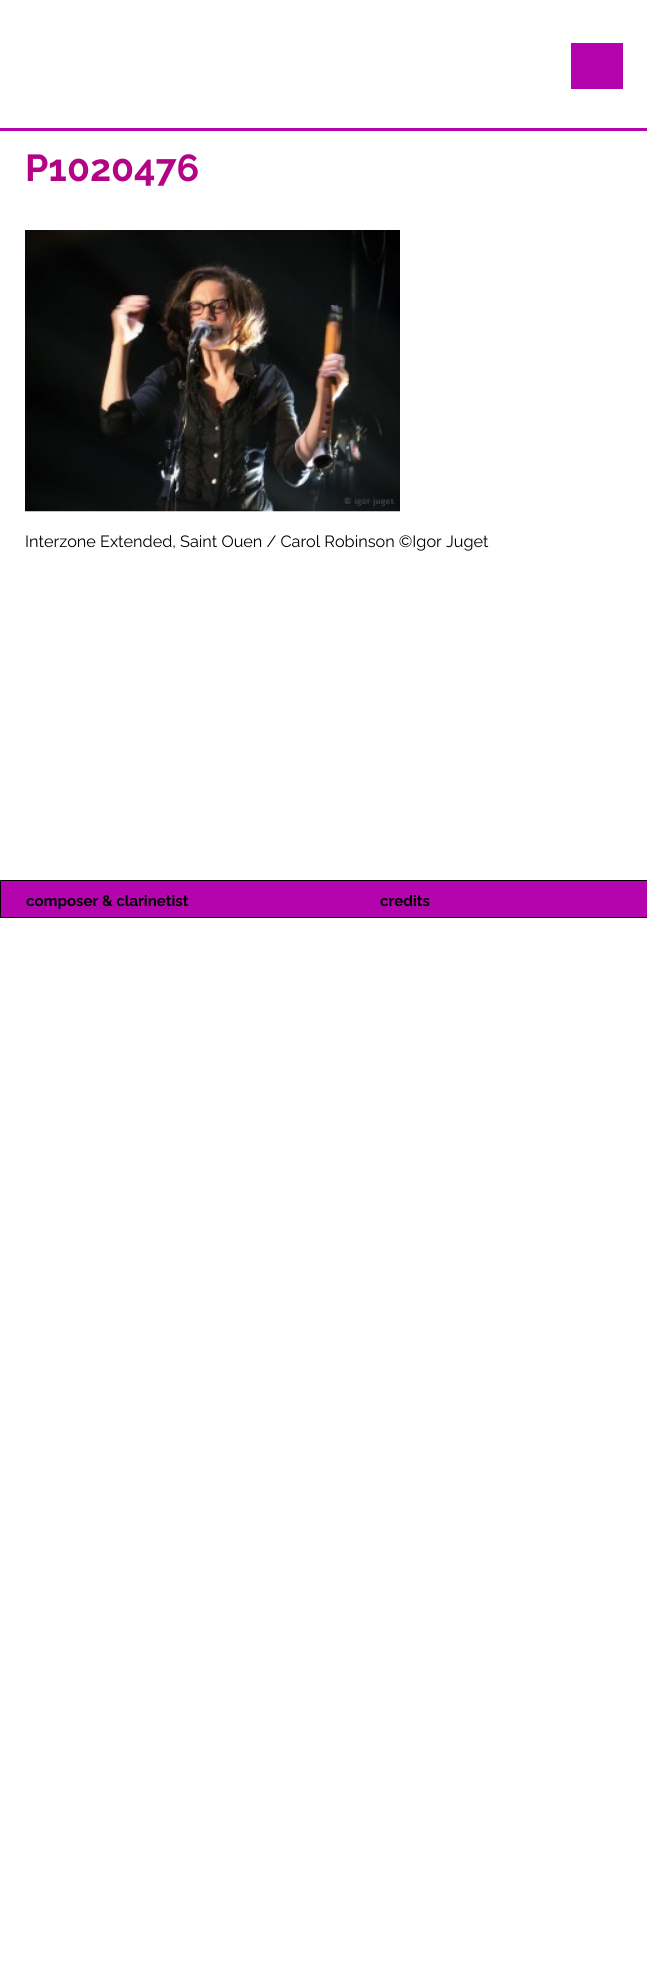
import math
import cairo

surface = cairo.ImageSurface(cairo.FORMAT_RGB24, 647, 1987)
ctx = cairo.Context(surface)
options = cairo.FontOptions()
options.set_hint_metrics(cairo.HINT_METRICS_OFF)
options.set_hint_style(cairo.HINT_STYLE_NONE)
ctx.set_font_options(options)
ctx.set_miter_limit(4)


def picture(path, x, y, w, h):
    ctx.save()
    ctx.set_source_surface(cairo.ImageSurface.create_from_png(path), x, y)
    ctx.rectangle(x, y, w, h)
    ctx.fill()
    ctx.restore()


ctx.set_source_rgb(1, 1, 1)
ctx.paint()
ctx.set_source_rgb(0.706, 0.016, 0.682)
ctx.rectangle(0, 128, 647, 3)
ctx.fill()
ctx.rectangle(571, 43, 52, 46)
ctx.fill()
ctx.select_font_face("Raleway", cairo.FONT_SLANT_NORMAL, cairo.FONT_WEIGHT_BOLD)
ctx.set_font_size(37.5)
ctx.set_source_rgb(0.706, 0.016, 0.525)
ctx.move_to(25, 181)
ctx.show_text("P1020476")
picture("img1.png", 25, 230, 375, 282)
ctx.select_font_face("Raleway")
ctx.set_font_size(16.25)
ctx.set_source_rgb(0, 0, 0)
ctx.move_to(25, 547)
ctx.show_text("Interzone Extended, Saint Ouen / Carol Robinson ©Igor Juget")
ctx.set_source_rgb(0.706, 0.016, 0.682)
ctx.rectangle(0.5, 880.5, 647, 37)
ctx.fill_preserve()
ctx.set_source_rgb(0, 0, 0)
ctx.set_line_width(1)
ctx.stroke()
ctx.select_font_face("Raleway", cairo.FONT_SLANT_NORMAL, cairo.FONT_WEIGHT_BOLD)
ctx.set_font_size(15)
ctx.move_to(26, 906)
ctx.show_text("composer & clarinetist")
ctx.move_to(380, 906)
ctx.show_text("credits")
surface.write_to_png("page.png")
